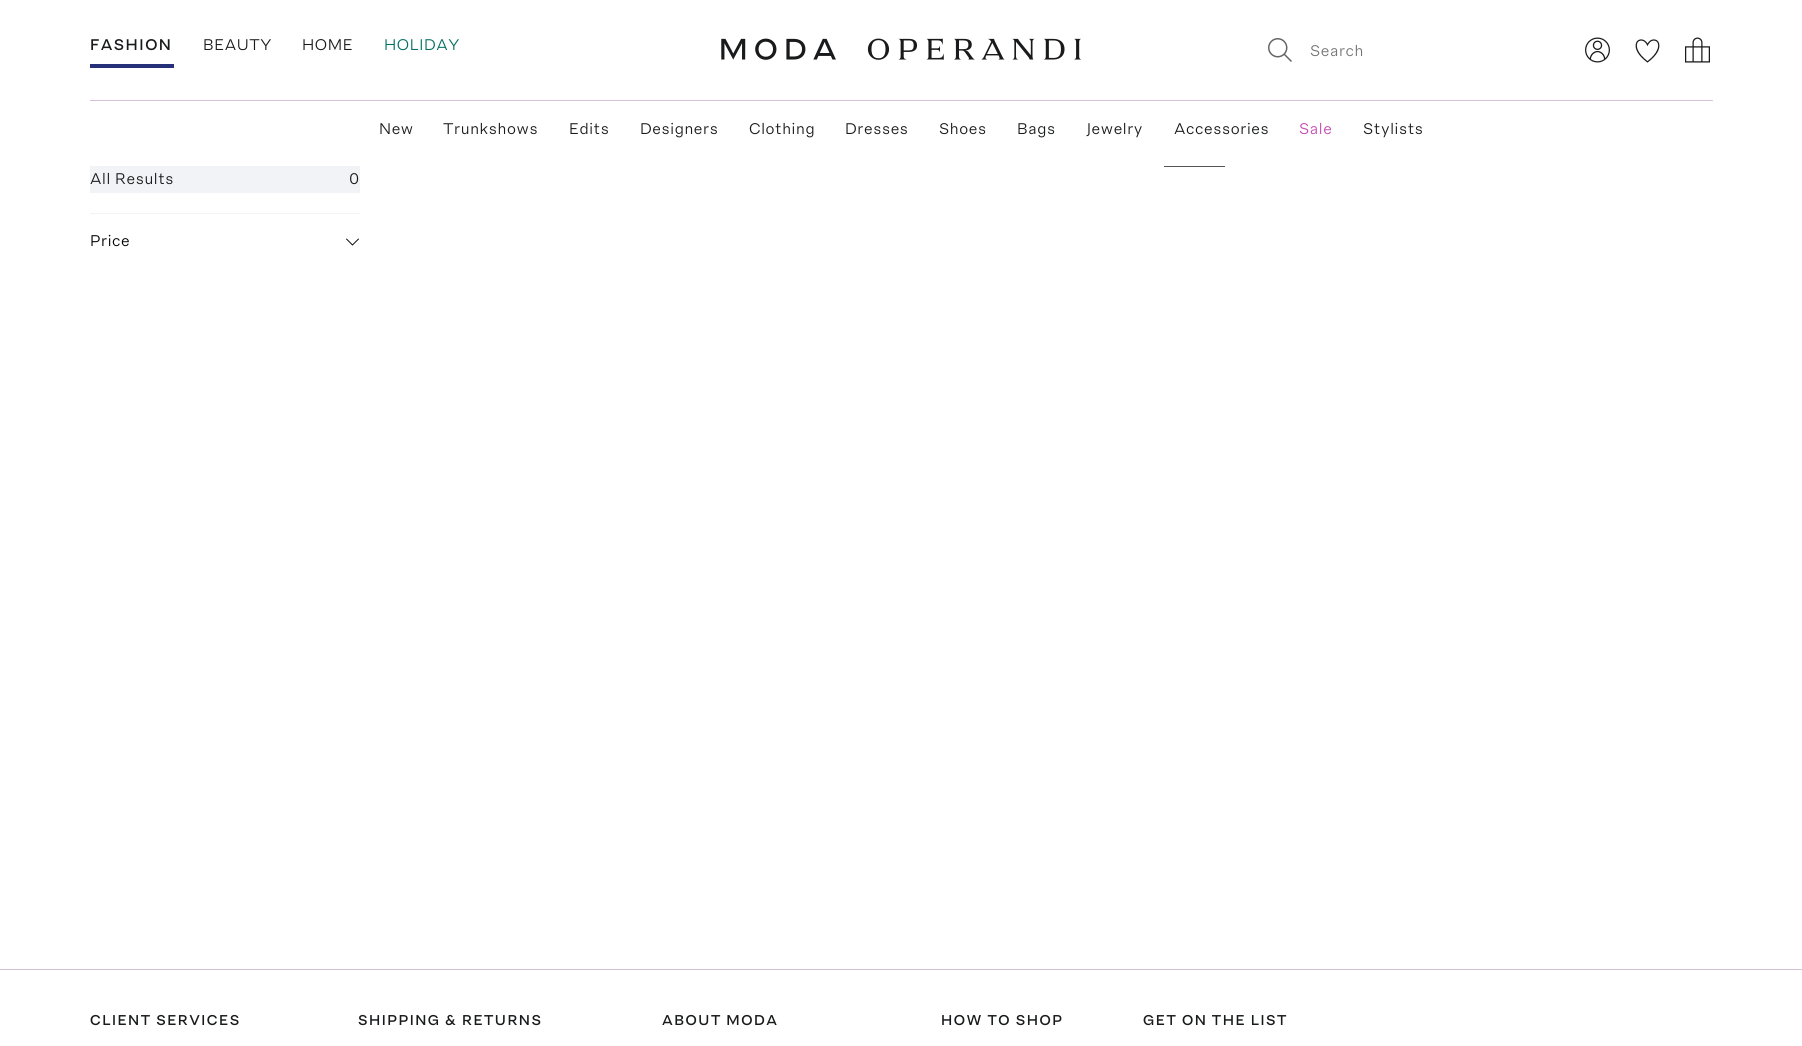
import math
import cairo

surface = cairo.ImageSurface(cairo.FORMAT_RGB24, 1802, 1046)
ctx = cairo.Context(surface)
options = cairo.FontOptions()
options.set_hint_metrics(cairo.HINT_METRICS_OFF)
options.set_hint_style(cairo.HINT_STYLE_NONE)
ctx.set_font_options(options)
ctx.set_miter_limit(4)


def spaced_text(x, y, s, letter, word):
    ctx.move_to(x, y)
    for ch in s:
        ctx.show_text(ch)
        ctx.rel_move_to(letter + word * (ch == ' '), 0)


def picture(path, x, y, w, h):
    ctx.save()
    ctx.set_source_surface(cairo.ImageSurface.create_from_png(path), x, y)
    ctx.rectangle(x, y, w, h)
    ctx.fill()
    ctx.restore()


ctx.set_source_rgb(1, 1, 1)
ctx.paint()
ctx.select_font_face("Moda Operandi", cairo.FONT_SLANT_NORMAL, cairo.FONT_WEIGHT_BOLD)
ctx.set_font_size(16.25)
ctx.set_source_rgb(0.098, 0.102, 0.106)
spaced_text(90, 50, "FASHION", 1.5, 0)
ctx.set_source_rgb(0.149, 0.188, 0.471)
ctx.rectangle(90, 64, 84, 4)
ctx.fill()
ctx.select_font_face("Moda Operandi")
ctx.set_source_rgb(0.098, 0.102, 0.106)
spaced_text(203, 50, "BEAUTY", 0.6, 0)
spaced_text(302, 50, "HOME", 0.6, 0)
ctx.set_source_rgb(0, 0.435, 0.384)
spaced_text(384, 50, "HOLIDAY", 0.6, 0)
picture("img1.png", 721, 38, 360, 22)
picture("img2.png", 1268, 38, 24, 24)
ctx.set_source_rgb(0.459, 0.459, 0.459)
spaced_text(1310, 56, "Search", 0.6, 0)
picture("img3.png", 1585, 37, 25, 26)
picture("img4.png", 1635, 39, 25, 24)
picture("img5.png", 1685, 37, 25, 26)
ctx.set_source_rgb(0.835, 0.761, 0.847)
ctx.rectangle(90, 100, 1623, 1)
ctx.fill()
ctx.set_source_rgb(0.098, 0.102, 0.106)
spaced_text(379, 134, "New", 0.6, 0)
spaced_text(443, 134, "Trunkshows", 0.6, 0)
spaced_text(569, 134, "Edits", 0.6, 0)
spaced_text(640, 134, "Designers", 0.6, 0)
spaced_text(749, 134, "Clothing", 0.6, 0)
spaced_text(845, 134, "Dresses", 0.6, 0)
spaced_text(939, 134, "Shoes", 0.6, 0)
spaced_text(1017, 134, "Bags", 0.6, 0)
spaced_text(1086, 134, "Jewelry", 0.6, 0)
spaced_text(1174, 134, "Accessories", 0.6, 0)
ctx.set_source_rgb(0.769, 0.298, 0.69)
spaced_text(1299, 134, "Sale", 0.6, 0)
ctx.set_source_rgb(0.098, 0.102, 0.106)
spaced_text(1363, 134, "Stylists", 0.6, 0)
ctx.set_source_rgb(0.325, 0.325, 0.329)
ctx.rectangle(1164, 166, 61, 1)
ctx.fill()
ctx.set_source_rgb(0.949, 0.953, 0.961)
ctx.rectangle(90, 166, 270, 27)
ctx.fill()
ctx.set_source_rgb(0.098, 0.102, 0.106)
spaced_text(90, 184, "All Results", 0.6, 0)
spaced_text(349, 184, "0", 0.6, 0)
ctx.set_source_rgb(0.949, 0.953, 0.961)
ctx.rectangle(90, 213, 270, 1)
ctx.fill()
ctx.set_source_rgb(0, 0, 0)
spaced_text(90, 246, "Price", 0.6, 0)
picture("img6.png", 346, 238, 13, 8)
ctx.set_source_rgb(0.835, 0.761, 0.847)
ctx.rectangle(0, 969, 1802, 1)
ctx.fill()
ctx.select_font_face("Moda Operandi", cairo.FONT_SLANT_NORMAL, cairo.FONT_WEIGHT_BOLD)
ctx.set_font_size(15)
ctx.set_source_rgb(0.098, 0.102, 0.106)
spaced_text(90, 1025, "CLIENT SERVICES", 1.5, 0)
spaced_text(358, 1025, "SHIPPING & RETURNS", 1.5, 0)
spaced_text(662, 1025, "ABOUT MODA", 1.5, 0)
spaced_text(941, 1025, "HOW TO SHOP", 1.5, 0)
spaced_text(1143, 1025, "GET ON THE LIST", 1.5, 0)
surface.write_to_png("page.png")
